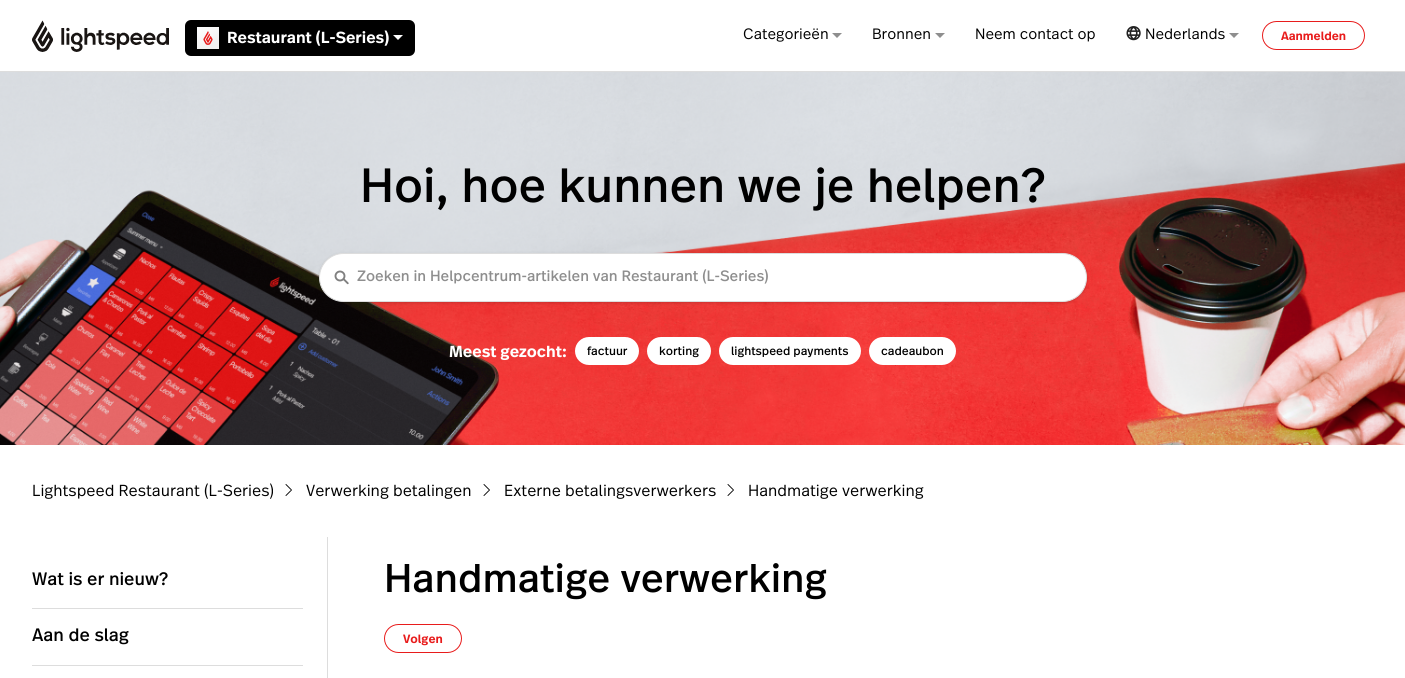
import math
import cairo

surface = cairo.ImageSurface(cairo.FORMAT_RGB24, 1405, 678)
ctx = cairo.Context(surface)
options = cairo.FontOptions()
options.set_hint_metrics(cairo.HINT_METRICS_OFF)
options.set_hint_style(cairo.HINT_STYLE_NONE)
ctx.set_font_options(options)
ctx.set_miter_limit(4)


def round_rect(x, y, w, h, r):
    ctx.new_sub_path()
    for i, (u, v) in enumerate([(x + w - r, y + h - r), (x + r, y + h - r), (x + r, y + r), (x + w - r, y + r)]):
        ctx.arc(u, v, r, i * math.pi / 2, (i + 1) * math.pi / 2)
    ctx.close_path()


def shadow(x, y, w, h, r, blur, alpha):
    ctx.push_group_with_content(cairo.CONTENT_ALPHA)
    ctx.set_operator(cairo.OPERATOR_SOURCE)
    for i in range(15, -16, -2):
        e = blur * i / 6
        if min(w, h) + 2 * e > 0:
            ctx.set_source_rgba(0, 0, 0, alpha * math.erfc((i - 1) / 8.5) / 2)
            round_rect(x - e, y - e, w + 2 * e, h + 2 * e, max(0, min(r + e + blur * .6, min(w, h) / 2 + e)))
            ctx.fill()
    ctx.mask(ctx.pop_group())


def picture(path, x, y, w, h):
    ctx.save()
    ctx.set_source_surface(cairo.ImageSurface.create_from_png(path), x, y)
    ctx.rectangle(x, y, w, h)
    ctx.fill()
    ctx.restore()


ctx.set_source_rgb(1, 1, 1)
ctx.paint()
ctx.set_source_rgb(0.867, 0.867, 0.867)
ctx.rectangle(0, 71, 1405, 1)
ctx.fill()
picture("img1.png", 32, 20, 137, 32)
ctx.set_source_rgb(0, 0, 0)
round_rect(185, 20, 230, 36, 6)
ctx.fill()
picture("img2.png", 197, 27, 22, 22)
ctx.select_font_face("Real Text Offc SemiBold")
ctx.set_font_size(16)
ctx.set_source_rgb(1, 1, 1)
ctx.move_to(227, 43)
ctx.show_text("Restaurant (L-Series)")
ctx.new_path()
ctx.move_to(393, 35)
ctx.line_to(398, 40)
ctx.line_to(403, 35)
ctx.close_path()
ctx.fill()
ctx.select_font_face("Real Text Offc Light")
ctx.set_font_size(15)
ctx.set_source_rgb(0, 0, 0)
ctx.move_to(743, 39)
ctx.show_text("Categorieën")
ctx.set_source_rgb(0.557, 0.557, 0.557)
ctx.new_path()
ctx.move_to(832, 33)
ctx.line_to(837, 38)
ctx.line_to(842, 33)
ctx.close_path()
ctx.fill()
ctx.set_source_rgb(0, 0, 0)
ctx.move_to(872, 39)
ctx.show_text("Bronnen")
ctx.set_source_rgb(0.557, 0.557, 0.557)
ctx.new_path()
ctx.move_to(935, 33)
ctx.line_to(940, 38)
ctx.line_to(945, 33)
ctx.close_path()
ctx.fill()
ctx.set_source_rgb(0, 0, 0)
ctx.move_to(975, 39)
ctx.show_text("Neem contact op")
picture("img3.png", 1126, 26, 15, 15)
ctx.move_to(1145, 39)
ctx.show_text("Nederlands")
ctx.set_source_rgb(0.557, 0.557, 0.557)
ctx.new_path()
ctx.move_to(1229, 33)
ctx.line_to(1234, 38)
ctx.line_to(1239, 33)
ctx.close_path()
ctx.fill()
round_rect(1262.5, 21.5, 102, 28, 14)
ctx.set_source_rgb(0.91, 0.11, 0.11)
ctx.set_line_width(1)
ctx.stroke()
ctx.select_font_face("Real Text Offc SemiBold")
ctx.set_font_size(12)
ctx.move_to(1281, 40)
ctx.show_text("Aanmelden")
picture("img4.png", 0, 72, 1405, 373)
ctx.select_font_face("Real Text Offc")
ctx.set_font_size(48)
ctx.set_source_rgb(0, 0, 0)
ctx.move_to(360, 202)
ctx.show_text("Hoi, hoe kunnen we je helpen?")
ctx.set_source_rgb(0, 0, 0)
shadow(319, 254, 768, 49, 24.5, 1, 0.06)
shadow(319, 254, 768, 49, 24.5, 1.5, 0.1)
ctx.set_source_rgb(1, 1, 1)
round_rect(319.5, 253.5, 767, 48, 24)
ctx.fill_preserve()
ctx.set_source_rgb(0.867, 0.867, 0.867)
ctx.stroke()
picture("img5.png", 334, 270, 15, 15)
ctx.set_font_size(15)
ctx.set_source_rgb(0.557, 0.557, 0.557)
ctx.move_to(357, 281)
ctx.show_text("Zoeken in Helpcentrum-artikelen van Restaurant (L-Series)")
ctx.select_font_face("Real Text Offc SemiBold")
ctx.set_font_size(16)
ctx.set_source_rgb(1, 1, 1)
ctx.move_to(449, 357)
ctx.show_text("Meest gezocht:")
round_rect(575, 337, 64, 28, 14)
ctx.fill()
ctx.select_font_face("Real Text Offc")
ctx.set_font_size(12)
ctx.set_source_rgb(0, 0, 0)
ctx.move_to(587, 355)
ctx.show_text("factuur")
ctx.set_source_rgb(1, 1, 1)
round_rect(647, 337, 64, 28, 14)
ctx.fill()
ctx.set_source_rgb(0, 0, 0)
ctx.move_to(659, 355)
ctx.show_text("korting")
ctx.set_source_rgb(1, 1, 1)
round_rect(719, 337, 142, 28, 14)
ctx.fill()
ctx.set_source_rgb(0, 0, 0)
ctx.move_to(731, 355)
ctx.show_text("lightspeed payments")
ctx.set_source_rgb(1, 1, 1)
round_rect(869, 337, 87, 28, 14)
ctx.fill()
ctx.set_source_rgb(0, 0, 0)
ctx.move_to(881, 355)
ctx.show_text("cadeaubon")
ctx.select_font_face("Real Text Offc Light")
ctx.set_font_size(16)
ctx.move_to(32, 496)
ctx.show_text("Lightspeed Restaurant (L-Series)")
picture("img6.png", 285, 484, 7, 12)
ctx.move_to(306, 496)
ctx.show_text("Verwerking betalingen")
picture("img6.png", 483, 484, 7, 12)
ctx.move_to(504, 496)
ctx.show_text("Externe betalingsverwerkers")
picture("img6.png", 727, 484, 7, 12)
ctx.move_to(748, 496)
ctx.show_text("Handmatige verwerking")
ctx.set_source_rgb(0.867, 0.867, 0.867)
ctx.rectangle(327, 537, 1, 141)
ctx.fill()
ctx.rectangle(32, 608, 271, 1)
ctx.fill()
ctx.select_font_face("Real Text Offc")
ctx.set_font_size(18)
ctx.set_source_rgb(0, 0, 0)
ctx.move_to(32, 585)
ctx.show_text("Wat is er nieuw?")
ctx.set_source_rgb(0.867, 0.867, 0.867)
ctx.rectangle(32, 665, 271, 1)
ctx.fill()
ctx.set_source_rgb(0, 0, 0)
ctx.move_to(32, 641)
ctx.show_text("Aan de slag")
ctx.set_font_size(40)
ctx.move_to(384, 592)
ctx.show_text("Handmatige verwerking")
round_rect(384.5, 624.5, 77, 28, 14)
ctx.set_source_rgb(0.91, 0.11, 0.11)
ctx.stroke()
ctx.select_font_face("Real Text Offc SemiBold")
ctx.set_font_size(12)
ctx.move_to(403, 643)
ctx.show_text("Volgen")
surface.write_to_png("page.png")
